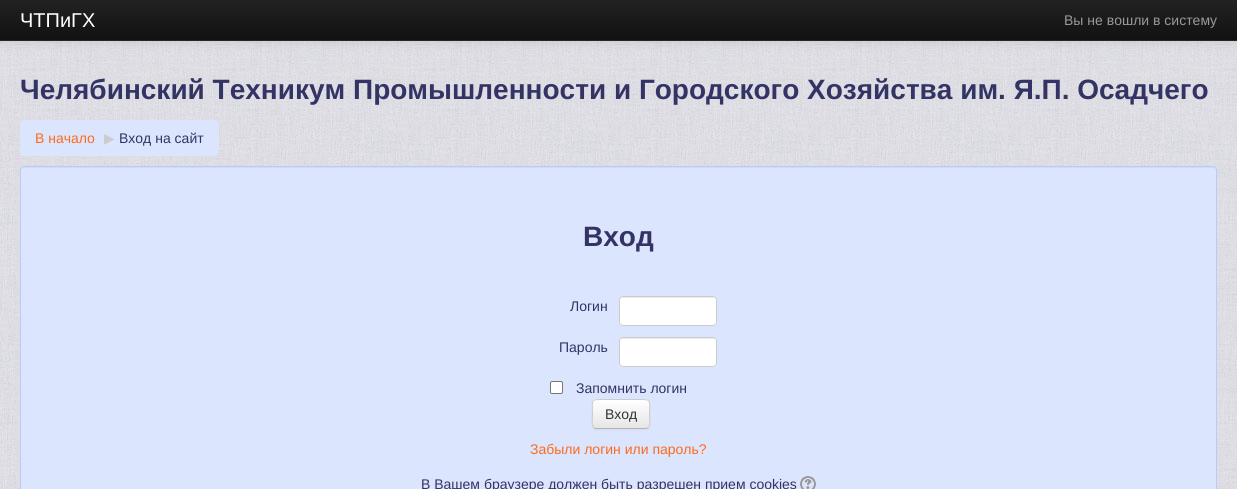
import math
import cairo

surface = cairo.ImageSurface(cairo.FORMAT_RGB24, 1237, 489)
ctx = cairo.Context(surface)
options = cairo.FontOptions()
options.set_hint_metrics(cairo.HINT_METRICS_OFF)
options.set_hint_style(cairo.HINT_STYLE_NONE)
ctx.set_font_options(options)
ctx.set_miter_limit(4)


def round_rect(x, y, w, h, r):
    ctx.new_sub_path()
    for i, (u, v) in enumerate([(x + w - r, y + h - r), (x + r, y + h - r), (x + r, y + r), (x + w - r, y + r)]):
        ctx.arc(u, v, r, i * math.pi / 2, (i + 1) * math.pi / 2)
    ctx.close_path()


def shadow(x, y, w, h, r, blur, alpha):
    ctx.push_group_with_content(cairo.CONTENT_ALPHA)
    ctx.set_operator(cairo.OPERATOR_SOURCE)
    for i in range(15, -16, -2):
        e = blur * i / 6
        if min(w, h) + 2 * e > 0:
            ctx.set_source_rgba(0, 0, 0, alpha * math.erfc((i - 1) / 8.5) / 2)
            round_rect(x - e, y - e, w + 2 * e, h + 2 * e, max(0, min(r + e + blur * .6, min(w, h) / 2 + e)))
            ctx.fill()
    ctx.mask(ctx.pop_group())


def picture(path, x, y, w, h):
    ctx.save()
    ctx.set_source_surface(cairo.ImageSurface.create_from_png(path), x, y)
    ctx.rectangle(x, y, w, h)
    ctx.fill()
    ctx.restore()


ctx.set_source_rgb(1, 1, 1)
ctx.paint()
picture("img1.png", 0, 41, 1237, 448)
ctx.set_source_rgb(0, 0, 0)
shadow(0, 1, 1237, 41, 0, 5, 0.1)
gradient = cairo.LinearGradient(619, 0, 619, 40)
gradient.add_color_stop_rgba(0, 0.133, 0.133, 0.133, 1)
gradient.add_color_stop_rgba(1, 0.067, 0.067, 0.067, 1)
ctx.set_source(gradient)
ctx.rectangle(0, 0, 1237, 40)
ctx.fill()
ctx.set_source_rgb(0.145, 0.145, 0.145)
ctx.rectangle(0, 40, 1237, 1)
ctx.fill()
ctx.select_font_face("Liberation Sans")
ctx.set_font_size(20)
ctx.set_source_rgb(1, 1, 1)
ctx.move_to(20, 27)
ctx.show_text("ЧТПиГХ")
ctx.set_font_size(14)
ctx.set_source_rgb(0.6, 0.6, 0.6)
ctx.move_to(1064, 25)
ctx.show_text("Вы не вошли в систему")
ctx.select_font_face("Liberation Sans", cairo.FONT_SLANT_NORMAL, cairo.FONT_WEIGHT_BOLD)
ctx.set_font_size(28)
ctx.set_source_rgb(0.2, 0.2, 0.4)
ctx.move_to(20, 99)
ctx.show_text("Челябинский Техникум Промышленности и Городского Хозяйства им. Я.П. Осадчего")
ctx.set_source_rgb(0.863, 0.898, 0.996)
round_rect(20, 120, 199, 36, 4)
ctx.fill()
ctx.select_font_face("Liberation Sans")
ctx.set_font_size(14)
ctx.set_source_rgb(1, 0.416, 0.098)
ctx.move_to(35, 143)
ctx.show_text("В начало")
ctx.select_font_face("DejaVu Sans")
ctx.set_source_rgb(0.8, 0.8, 0.8)
ctx.move_to(104, 143)
ctx.show_text("▶")
ctx.select_font_face("Liberation Sans")
ctx.set_source_rgb(0.2, 0.2, 0.4)
ctx.move_to(119, 143)
ctx.show_text("Вход на сайт")
ctx.set_source_rgb(0.863, 0.898, 0.996)
round_rect(20, 166, 1197, 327, 4)
ctx.fill()
ctx.set_source_rgb(0.82, 0.855, 0.945)
ctx.new_path()
ctx.move_to(24, 168)
ctx.line_to(1213, 168)
ctx.curve_to(1215, 168, 1216, 169, 1216, 171)
ctx.line_to(1216, 170)
ctx.curve_to(1216, 168, 1215, 167, 1213, 167)
ctx.line_to(24, 167)
ctx.curve_to(22, 167, 21, 168, 21, 170)
ctx.line_to(21, 171)
ctx.curve_to(21, 169, 22, 168, 24, 168)
ctx.close_path()
ctx.fill()
round_rect(20.5, 166.5, 1196, 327, 3.5)
ctx.set_source_rgb(0.725, 0.796, 0.992)
ctx.set_line_width(1)
ctx.stroke()
ctx.select_font_face("Liberation Sans", cairo.FONT_SLANT_NORMAL, cairo.FONT_WEIGHT_BOLD)
ctx.set_font_size(28)
ctx.set_source_rgb(0.2, 0.2, 0.4)
ctx.move_to(583, 246)
ctx.show_text("Вход")
ctx.select_font_face("Liberation Sans")
ctx.set_font_size(14)
ctx.move_to(570, 311)
ctx.show_text("Логин")
ctx.set_source_rgb(1, 1, 1)
round_rect(619, 296, 98, 30, 4)
ctx.fill()
ctx.set_source_rgb(0.925, 0.925, 0.925)
ctx.new_path()
ctx.move_to(623, 298)
ctx.line_to(713, 298)
ctx.curve_to(715, 298, 716, 299, 716, 301)
ctx.curve_to(716, 293, 701, 297, 698, 297)
ctx.line_to(638, 297)
ctx.curve_to(635, 297, 620, 293, 620, 301)
ctx.curve_to(620, 299, 621, 298, 623, 298)
ctx.close_path()
ctx.fill()
round_rect(619.5, 296.5, 97, 29, 3.5)
ctx.set_source_rgb(0.8, 0.8, 0.8)
ctx.stroke()
ctx.set_source_rgb(0.2, 0.2, 0.4)
ctx.move_to(559, 352)
ctx.show_text("Пароль")
ctx.set_source_rgb(1, 1, 1)
round_rect(619, 337, 98, 30, 4)
ctx.fill()
ctx.set_source_rgb(0.925, 0.925, 0.925)
ctx.new_path()
ctx.move_to(623, 339)
ctx.line_to(713, 339)
ctx.curve_to(715, 339, 716, 340, 716, 342)
ctx.curve_to(716, 334, 701, 338, 698, 338)
ctx.line_to(638, 338)
ctx.curve_to(635, 338, 620, 334, 620, 342)
ctx.curve_to(620, 340, 621, 339, 623, 339)
ctx.close_path()
ctx.fill()
round_rect(619.5, 337.5, 97, 29, 3.5)
ctx.set_source_rgb(0.8, 0.8, 0.8)
ctx.stroke()
ctx.set_source_rgb(1, 1, 1)
round_rect(550.5, 381.5, 12, 12, 1.5)
ctx.fill_preserve()
ctx.set_source_rgb(0.463, 0.463, 0.463)
ctx.stroke()
ctx.set_source_rgb(0.2, 0.2, 0.4)
ctx.move_to(576, 393)
ctx.show_text("Запомнить логин")
ctx.set_source_rgb(0, 0, 0)
shadow(592, 400, 58, 30, 4, 1, 0.05)
ctx.set_source_rgb(0.961, 0.961, 0.961)
round_rect(592, 399, 58, 30, 4)
ctx.fill()
ctx.save()
round_rect(592, 399, 58, 30, 4)
ctx.clip()
gradient = cairo.LinearGradient(621, 400, 621, 428)
gradient.add_color_stop_rgba(0, 1, 1, 1, 1)
gradient.add_color_stop_rgba(1, 0.902, 0.902, 0.902, 1)
ctx.set_source(gradient)
ctx.rectangle(592, 400, 58, 28)
ctx.fill()
ctx.restore()
ctx.set_source_rgb(1, 1, 1)
ctx.new_path()
ctx.move_to(596, 401)
ctx.line_to(646, 401)
ctx.curve_to(648, 401, 649, 402, 649, 404)
ctx.curve_to(649, 398, 642, 400, 638, 400)
ctx.line_to(604, 400)
ctx.curve_to(600, 400, 593, 398, 593, 404)
ctx.curve_to(593, 402, 594, 401, 596, 401)
ctx.close_path()
ctx.fill()
ctx.new_path()
ctx.move_to(648.5, 427.5)
ctx.line_to(646.5, 428.5)
ctx.line_to(595.5, 428.5)
ctx.line_to(593.5, 427.5)
ctx.set_source_rgb(0.702, 0.702, 0.702)
ctx.stroke()
ctx.new_path()
ctx.move_to(593.5, 427.5)
ctx.curve_to(591.5, 425.5, 592.5, 417, 592.5, 414)
ctx.curve_to(592.5, 399, 590, 399.5, 604.5, 399.5)
ctx.line_to(637.5, 399.5)
ctx.curve_to(652, 399.5, 649.5, 399, 649.5, 414)
ctx.curve_to(649.5, 417, 650.5, 425.5, 648.5, 427.5)
ctx.set_source_rgb(0.8, 0.8, 0.8)
ctx.stroke()
ctx.set_source_rgb(0.2, 0.2, 0.2)
ctx.move_to(605, 419)
ctx.show_text("Вход")
ctx.set_source_rgb(1, 0.416, 0.098)
ctx.move_to(530, 454)
ctx.show_text("Забыли логин или пароль?")
ctx.set_source_rgb(0.2, 0.2, 0.4)
ctx.move_to(421, 489)
ctx.show_text("В Вашем браузере должен быть разрешен прием cookies")
picture("img2.png", 800, 476, 16, 13)
surface.write_to_png("page.png")
